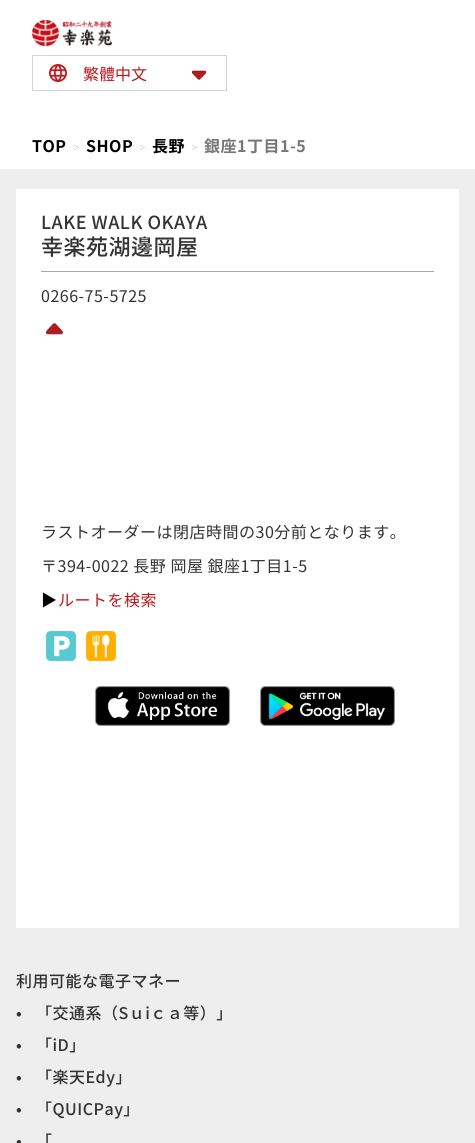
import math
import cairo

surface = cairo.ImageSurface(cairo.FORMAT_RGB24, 475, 1143)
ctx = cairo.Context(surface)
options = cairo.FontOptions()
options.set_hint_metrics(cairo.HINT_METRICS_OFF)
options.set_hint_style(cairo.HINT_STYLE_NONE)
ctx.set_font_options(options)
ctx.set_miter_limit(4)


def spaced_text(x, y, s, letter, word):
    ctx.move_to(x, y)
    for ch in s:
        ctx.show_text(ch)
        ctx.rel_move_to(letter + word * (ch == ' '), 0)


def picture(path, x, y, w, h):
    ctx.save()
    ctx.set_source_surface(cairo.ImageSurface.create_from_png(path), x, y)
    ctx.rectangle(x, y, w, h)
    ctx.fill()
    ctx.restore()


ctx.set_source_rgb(1, 1, 1)
ctx.paint()
picture("img1.png", 32, 20, 80, 26)
ctx.rectangle(32.5, 55.5, 194, 35)
ctx.set_source_rgb(0.82, 0.835, 0.859)
ctx.set_line_width(1)
ctx.stroke()
picture("img2.png", 49, 64, 18, 18)
ctx.select_font_face("Noto Sans JP")
ctx.set_font_size(16)
ctx.set_source_rgb(0.725, 0.102, 0.122)
ctx.move_to(83, 80)
ctx.show_text("繁體中文")
picture("img3.png", 192, 70, 14, 10)
ctx.select_font_face("Noto Sans JP", cairo.FONT_SLANT_NORMAL, cairo.FONT_WEIGHT_BOLD)
ctx.set_source_rgb(0, 0, 0)
spaced_text(32, 152, "TOP", 0.5, 0)
picture("img4.png", 74, 145, 5, 5)
spaced_text(86, 152, "SHOP", 0.5, 0)
picture("img4.png", 140, 145, 5, 5)
spaced_text(152, 152, "長野", 0.5, 0)
picture("img4.png", 192, 145, 5, 5)
ctx.set_source_rgb(0.467, 0.467, 0.467)
spaced_text(204, 152, "銀座1丁目1-5", 0.5, 0)
ctx.set_source_rgb(0.933, 0.933, 0.933)
ctx.rectangle(0, 169, 475, 974)
ctx.fill()
ctx.set_source_rgb(1, 1, 1)
ctx.rectangle(16, 189, 443, 739)
ctx.fill()
ctx.set_source_rgb(0.663, 0.663, 0.663)
ctx.rectangle(41, 271, 393, 1)
ctx.fill()
ctx.select_font_face("Noto Sans JP Medium")
ctx.set_font_size(18)
ctx.set_source_rgb(0.2, 0.2, 0.2)
spaced_text(41, 229, "LAKE WALK OKAYA", 0.5, 0)
ctx.set_font_size(22)
spaced_text(41, 255, "幸楽苑湖邊岡屋", 0.5, 0)
ctx.select_font_face("Noto Sans JP")
ctx.set_font_size(16)
spaced_text(41, 302, "0266-75-5725", 0.5, 0)
picture("img5.png", 46, 323, 17, 12)
spaced_text(41, 538, "ラストオーダーは閉店時間の30分前となります。", 0.5, 0)
spaced_text(41, 572, "〒394-0022 長野 岡屋 銀座1丁目1-5", 0.5, 0)
ctx.set_source_rgb(0, 0, 0)
spaced_text(41, 606, "▶", 0.5, 0)
ctx.set_source_rgb(0.725, 0.102, 0.122)
spaced_text(58, 606, "ルートを検索", 0.5, 0)
picture("img6.png", 46, 631, 30, 30)
picture("img7.png", 86, 631, 30, 30)
picture("img8.png", 95, 686, 135, 40)
picture("img9.png", 260, 686, 135, 40)
ctx.select_font_face("Noto Sans JP Medium")
ctx.set_source_rgb(0.2, 0.2, 0.2)
spaced_text(16, 987, "利用可能な電子マネー", 0.5, 0)
spaced_text(16, 1019, "•", 0.5, 0)
spaced_text(36, 1019, "「交通系（Sｕiｃａ等）」", 0.5, 0)
spaced_text(16, 1051, "•", 0.5, 0)
spaced_text(36, 1051, "「iD」", 0.5, 0)
spaced_text(16, 1083, "•", 0.5, 0)
spaced_text(36, 1083, "「楽天Edy」", 0.5, 0)
spaced_text(16, 1115, "•", 0.5, 0)
spaced_text(36, 1115, "「QUICPay」", 0.5, 0)
spaced_text(16, 1147, "•", 0.5, 0)
spaced_text(36, 1147, "「", 0.5, 0)
surface.write_to_png("page.png")
